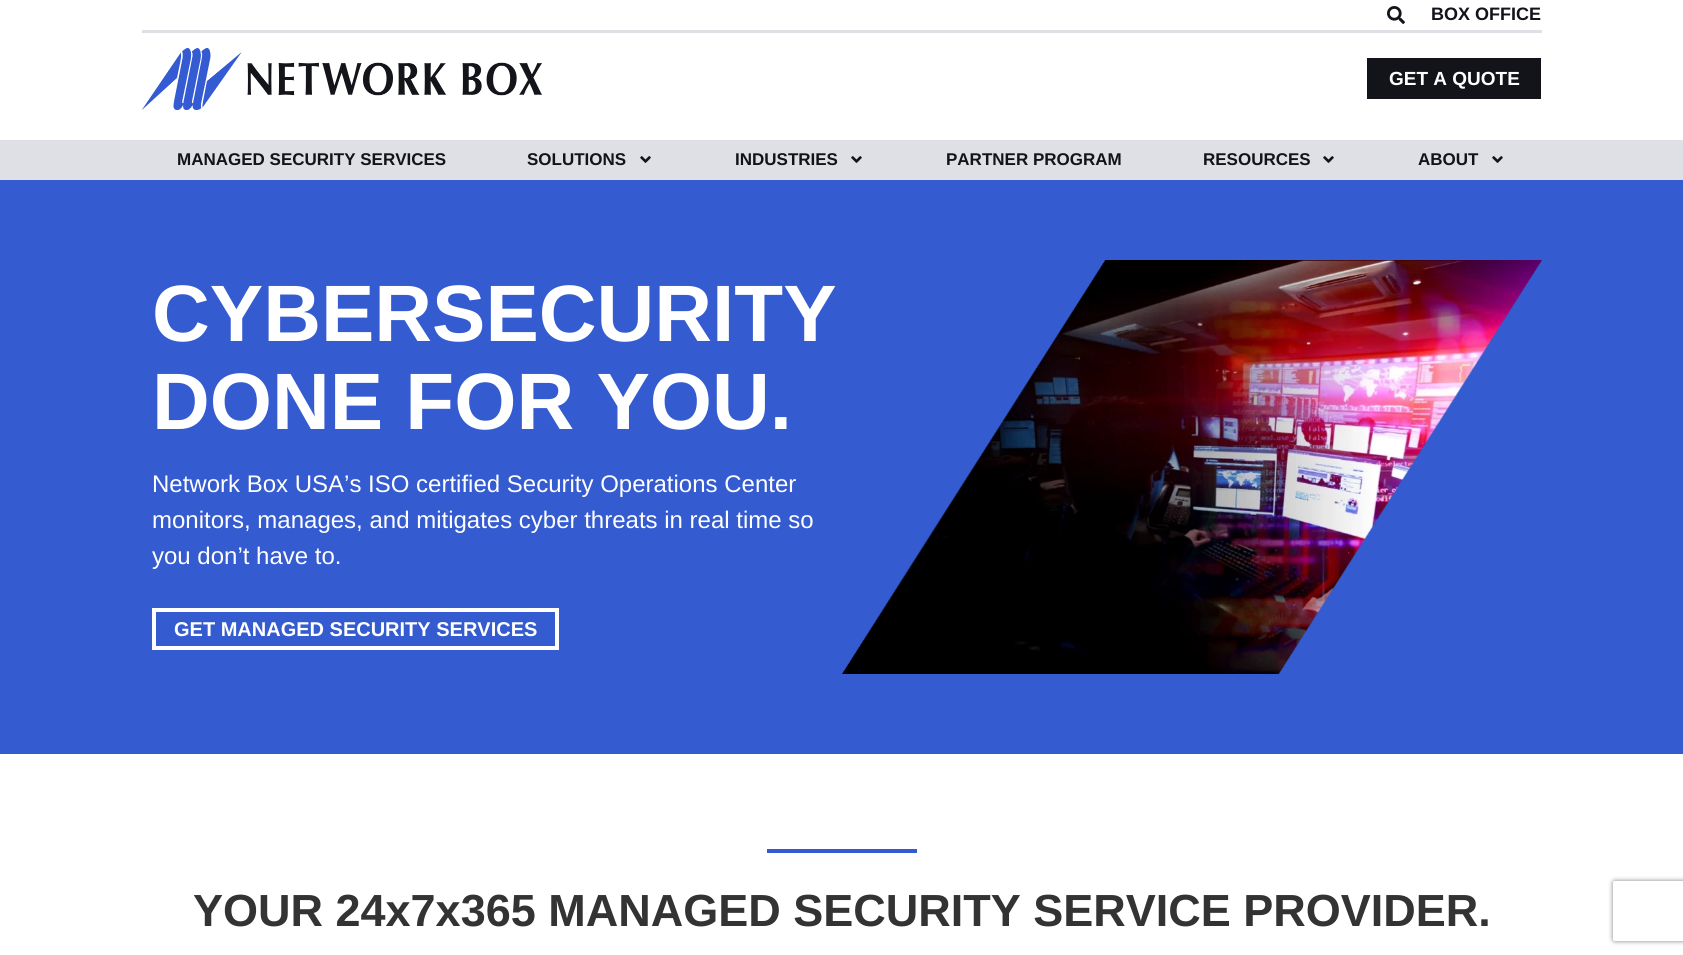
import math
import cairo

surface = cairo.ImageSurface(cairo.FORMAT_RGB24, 1683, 955)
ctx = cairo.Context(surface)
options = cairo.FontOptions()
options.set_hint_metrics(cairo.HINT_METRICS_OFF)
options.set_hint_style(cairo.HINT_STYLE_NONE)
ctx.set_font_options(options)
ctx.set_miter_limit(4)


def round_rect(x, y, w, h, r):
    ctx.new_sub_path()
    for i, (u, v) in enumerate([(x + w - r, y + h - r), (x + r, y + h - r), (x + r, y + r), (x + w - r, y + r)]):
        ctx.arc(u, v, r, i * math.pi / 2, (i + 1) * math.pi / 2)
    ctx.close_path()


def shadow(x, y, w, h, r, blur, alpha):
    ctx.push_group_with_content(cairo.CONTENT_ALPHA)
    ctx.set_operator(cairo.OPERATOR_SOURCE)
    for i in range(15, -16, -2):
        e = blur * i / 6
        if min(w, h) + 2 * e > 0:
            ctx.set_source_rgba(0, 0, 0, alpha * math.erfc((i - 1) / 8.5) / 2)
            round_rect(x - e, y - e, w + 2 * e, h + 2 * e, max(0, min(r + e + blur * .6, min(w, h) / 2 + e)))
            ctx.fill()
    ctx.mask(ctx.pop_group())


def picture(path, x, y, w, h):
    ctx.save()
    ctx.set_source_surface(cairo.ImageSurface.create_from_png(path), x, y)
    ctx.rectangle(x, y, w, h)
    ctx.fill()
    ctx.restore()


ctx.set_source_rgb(1, 1, 1)
ctx.paint()
picture("img1.png", 1387, 6, 18, 18)
ctx.select_font_face("Liberation Sans", cairo.FONT_SLANT_NORMAL, cairo.FONT_WEIGHT_BOLD)
ctx.set_font_size(18)
ctx.set_source_rgb(0.075, 0.082, 0.102)
ctx.move_to(1431, 20)
ctx.show_text("BOX OFFICE")
ctx.set_source_rgb(0.875, 0.878, 0.902)
ctx.rectangle(142, 30, 1400, 3)
ctx.fill()
picture("img2.png", 142, 48, 400, 62)
ctx.set_source_rgb(0.075, 0.082, 0.102)
ctx.rectangle(1367, 58, 174, 41)
ctx.fill()
ctx.set_font_size(19)
ctx.set_source_rgb(1, 1, 1)
ctx.move_to(1389, 85)
ctx.show_text("GET A QUOTE")
ctx.set_source_rgb(0.875, 0.878, 0.902)
ctx.rectangle(0, 140, 1683, 40)
ctx.fill()
ctx.set_font_size(17)
ctx.set_source_rgb(0.075, 0.082, 0.102)
ctx.move_to(177, 165)
ctx.show_text("MANAGED SECURITY SERVICES")
ctx.move_to(527, 165)
ctx.show_text("SOLUTIONS")
picture("img3.png", 640, 156, 11, 7)
ctx.move_to(735, 165)
ctx.show_text("INDUSTRIES")
picture("img3.png", 851, 156, 11, 7)
ctx.move_to(946, 165)
ctx.show_text("PARTNER PROGRAM")
ctx.move_to(1203, 165)
ctx.show_text("RESOURCES")
picture("img3.png", 1323, 156, 11, 7)
ctx.move_to(1418, 165)
ctx.show_text("ABOUT")
picture("img3.png", 1492, 156, 11, 7)
ctx.set_source_rgb(0.204, 0.357, 0.816)
ctx.rectangle(0, 180, 1683, 574)
ctx.fill()
ctx.set_font_size(80)
ctx.set_source_rgb(1, 1, 1)
ctx.move_to(152, 341)
ctx.show_text("CYBERSECURITY")
ctx.move_to(152, 429)
ctx.show_text("DONE FOR YOU.")
ctx.select_font_face("Liberation Sans")
ctx.set_font_size(24)
ctx.move_to(152, 492)
ctx.show_text("Network Box USA’s ISO certified Security Operations Center")
ctx.move_to(152, 528)
ctx.show_text("monitors, manages, and mitigates cyber threats in real time so")
ctx.move_to(152, 564)
ctx.show_text("you don’t have to.")
ctx.rectangle(154, 610, 403, 38)
ctx.set_line_width(4)
ctx.stroke()
ctx.select_font_face("Liberation Sans", cairo.FONT_SLANT_NORMAL, cairo.FONT_WEIGHT_BOLD)
ctx.set_font_size(20)
ctx.move_to(174, 636)
ctx.show_text("GET MANAGED SECURITY SERVICES")
picture("img4.png", 842, 260, 700, 414)
ctx.set_source_rgb(0.208, 0.357, 0.824)
ctx.rectangle(767, 849, 150, 4)
ctx.fill()
ctx.set_font_size(45)
ctx.set_source_rgb(0.2, 0.2, 0.2)
ctx.move_to(193, 926)
ctx.show_text("YOUR 24x7x365 MANAGED SECURITY SERVICE PROVIDER.")
ctx.save()
ctx.set_fill_rule(cairo.FILL_RULE_EVEN_ODD)
ctx.new_path()
ctx.move_to(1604, 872)
ctx.line_to(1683, 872)
ctx.line_to(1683, 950)
ctx.line_to(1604, 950)
ctx.close_path()
ctx.move_to(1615, 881)
ctx.line_to(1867, 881)
ctx.curve_to(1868, 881, 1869, 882, 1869, 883)
ctx.line_to(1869, 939)
ctx.curve_to(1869, 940, 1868, 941, 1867, 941)
ctx.line_to(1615, 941)
ctx.curve_to(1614, 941, 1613, 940, 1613, 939)
ctx.line_to(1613, 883)
ctx.curve_to(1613, 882, 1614, 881, 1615, 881)
ctx.close_path()
ctx.clip()
ctx.set_source_rgb(0.502, 0.502, 0.502)
shadow(1613, 881, 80, 60, 2, 2.5, 1)
ctx.restore()
surface.write_to_png("page.png")
